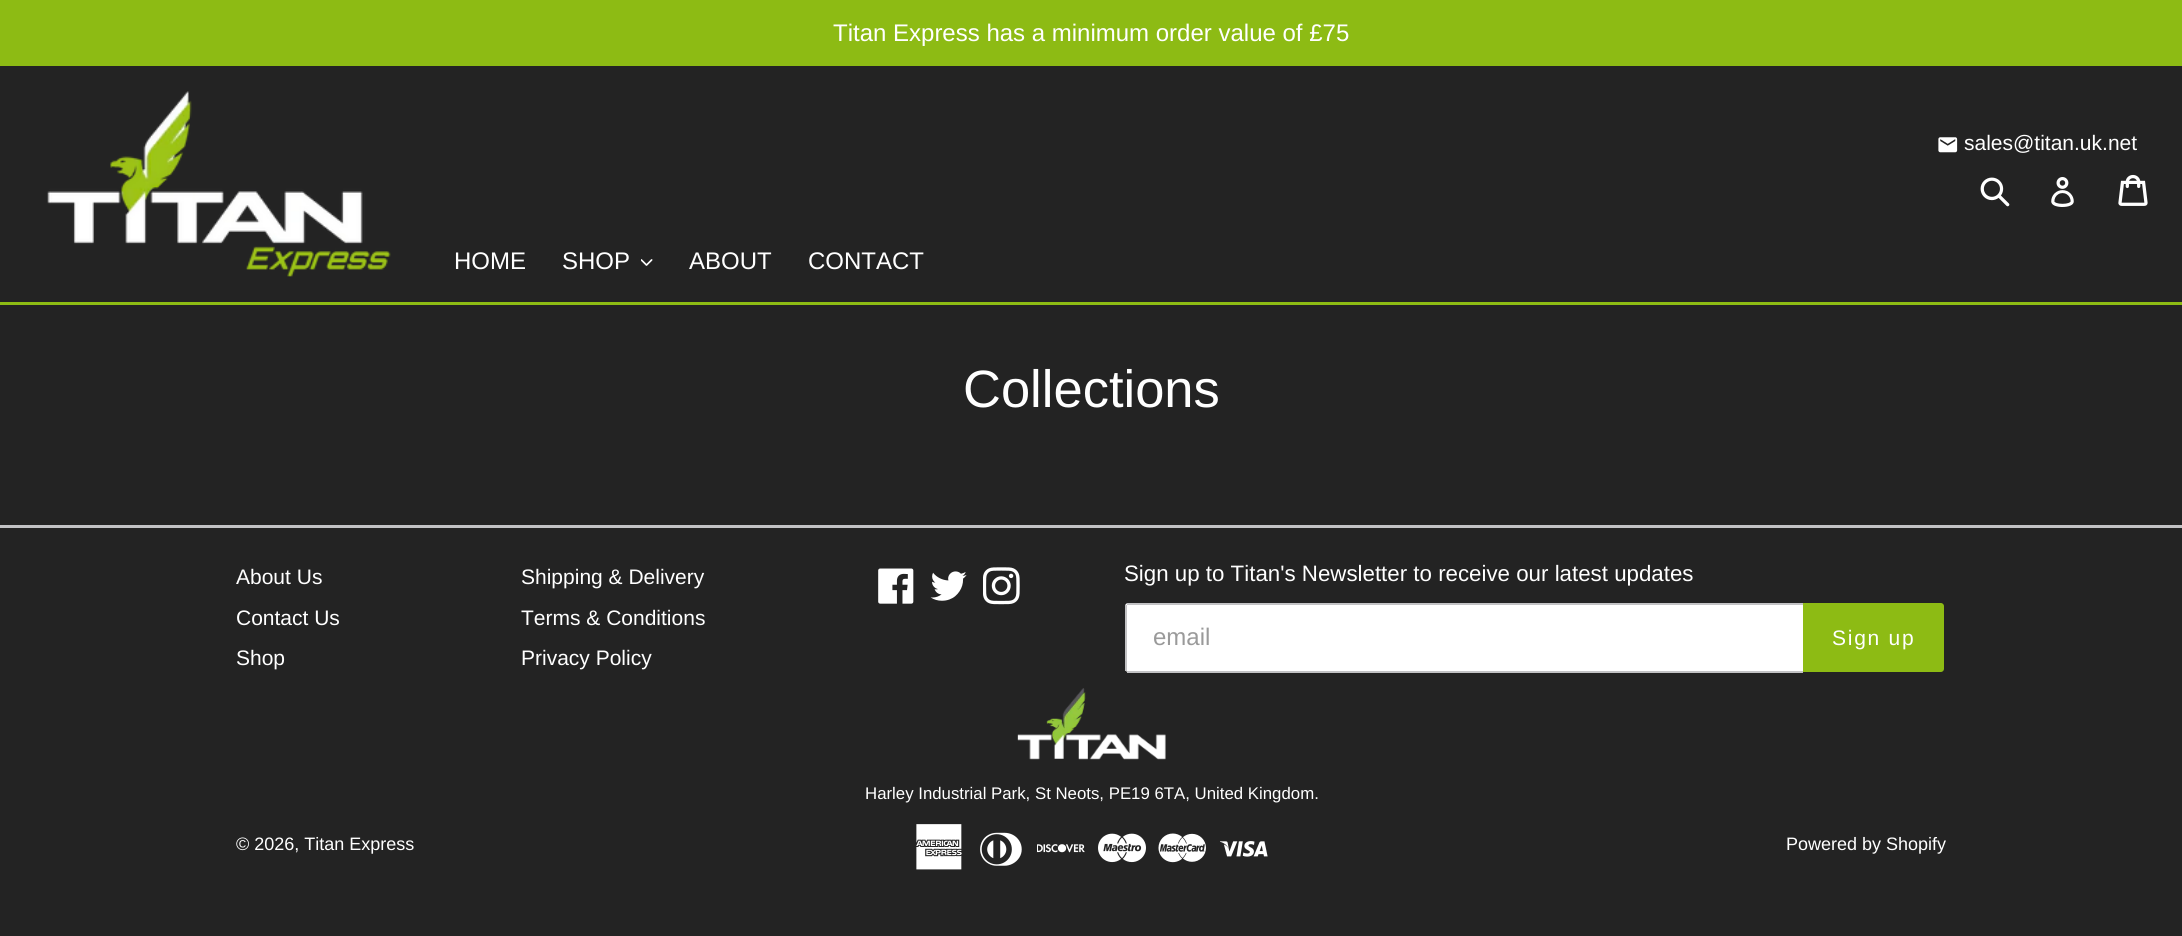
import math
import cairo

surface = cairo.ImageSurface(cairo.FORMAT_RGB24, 2182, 936)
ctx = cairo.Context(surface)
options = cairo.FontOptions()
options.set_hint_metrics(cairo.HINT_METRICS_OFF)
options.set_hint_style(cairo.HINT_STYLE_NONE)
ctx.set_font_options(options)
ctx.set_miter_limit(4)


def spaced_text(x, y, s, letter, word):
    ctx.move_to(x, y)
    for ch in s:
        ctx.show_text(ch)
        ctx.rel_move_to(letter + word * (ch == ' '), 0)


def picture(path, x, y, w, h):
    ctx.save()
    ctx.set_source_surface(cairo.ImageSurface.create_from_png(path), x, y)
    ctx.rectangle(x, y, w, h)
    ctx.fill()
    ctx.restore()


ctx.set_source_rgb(0.137, 0.137, 0.137)
ctx.paint()
ctx.set_source_rgb(0.553, 0.733, 0.082)
ctx.rectangle(0, 302, 2182, 3)
ctx.fill()
ctx.rectangle(0, 0, 2182, 66)
ctx.fill()
ctx.select_font_face("Liberation Sans")
ctx.set_font_size(24)
ctx.set_source_rgb(1, 1, 1)
ctx.move_to(833, 41)
ctx.show_text("Titan Express has a minimum order value of £75")
picture("img1.png", 47, 91, 344, 186)
picture("img2.png", 1938, 137, 20, 16)
ctx.set_font_size(21)
ctx.move_to(1964, 150)
ctx.show_text("sales@titan.uk.net")
picture("img3.png", 1980, 177, 30, 30)
picture("img4.png", 2051, 177, 23, 30)
picture("img5.png", 2118, 174, 30, 32)
ctx.set_font_size(24)
ctx.move_to(454, 269)
ctx.show_text("HOME")
ctx.move_to(562, 269)
ctx.show_text("SHOP")
picture("img6.png", 641, 259, 12, 7)
ctx.move_to(689, 269)
ctx.show_text("ABOUT")
ctx.move_to(808, 269)
ctx.show_text("CONTACT")
ctx.set_font_size(52.5)
ctx.move_to(963, 407)
ctx.show_text("Collections")
ctx.set_source_rgb(0.761, 0.761, 0.769)
ctx.rectangle(0, 525, 2182, 3)
ctx.fill()
ctx.set_font_size(21)
ctx.set_source_rgb(1, 1, 1)
ctx.move_to(236, 584)
ctx.show_text("About Us")
ctx.move_to(236, 625)
ctx.show_text("Contact Us")
ctx.move_to(236, 665)
ctx.show_text("Shop")
ctx.move_to(521, 584)
ctx.show_text("Shipping & Delivery")
ctx.move_to(521, 625)
ctx.show_text("Terms & Conditions")
ctx.move_to(521, 665)
ctx.show_text("Privacy Policy")
picture("img7.png", 878, 568, 36, 36)
picture("img8.png", 930, 571, 37, 30)
picture("img9.png", 983, 567, 37, 38)
ctx.set_font_size(22.3)
ctx.move_to(1124, 581)
ctx.show_text("Sign up to Titan's Newsletter to receive our latest updates")
ctx.new_path()
ctx.move_to(1128, 603)
ctx.line_to(1803, 603)
ctx.line_to(1803, 672)
ctx.line_to(1128, 672)
ctx.curve_to(1126.5, 672, 1125, 670.5, 1125, 669)
ctx.line_to(1125, 606)
ctx.curve_to(1125, 604.5, 1126.5, 603, 1128, 603)
ctx.close_path()
ctx.fill()
ctx.set_source_rgb(0.761, 0.761, 0.769)
ctx.rectangle(1127, 603, 676, 2)
ctx.fill()
ctx.rectangle(1127, 671, 676, 2)
ctx.fill()
ctx.rectangle(1125, 605, 2, 66)
ctx.fill()
ctx.save()
ctx.rectangle(1154, 624, 622, 27)
ctx.clip()
ctx.set_font_size(24)
ctx.set_source_rgb(0.604, 0.604, 0.604)
ctx.move_to(1153, 645)
ctx.show_text("email")
ctx.restore()
ctx.set_source_rgb(0.553, 0.733, 0.082)
ctx.new_path()
ctx.move_to(1803, 603)
ctx.line_to(1941, 603)
ctx.curve_to(1942.5, 603, 1944, 604.5, 1944, 606)
ctx.line_to(1944, 669)
ctx.curve_to(1944, 670.5, 1942.5, 672, 1941, 672)
ctx.line_to(1803, 672)
ctx.close_path()
ctx.fill()
ctx.set_font_size(21)
ctx.set_source_rgb(1, 1, 1)
spaced_text(1832, 645, "Sign up", 1.75, 0)
picture("img10.png", 1017, 688, 149, 72)
ctx.set_font_size(16.8)
ctx.move_to(865, 799)
ctx.show_text("Harley Industrial Park, St Neots, PE19 6TA, United Kingdom.")
ctx.set_font_size(18)
ctx.move_to(236, 850)
ctx.show_text("© 2026, Titan Express")
picture("img11.png", 916, 824, 46, 46)
picture("img12.png", 980, 832, 42, 34)
picture("img13.png", 1037, 844, 48, 9)
picture("img14.png", 1098, 833, 48, 30)
picture("img15.png", 1158, 833, 48, 30)
picture("img16.png", 1220, 841, 48, 16)
ctx.move_to(1786, 850)
ctx.show_text("Powered by Shopify")
surface.write_to_png("page.png")
